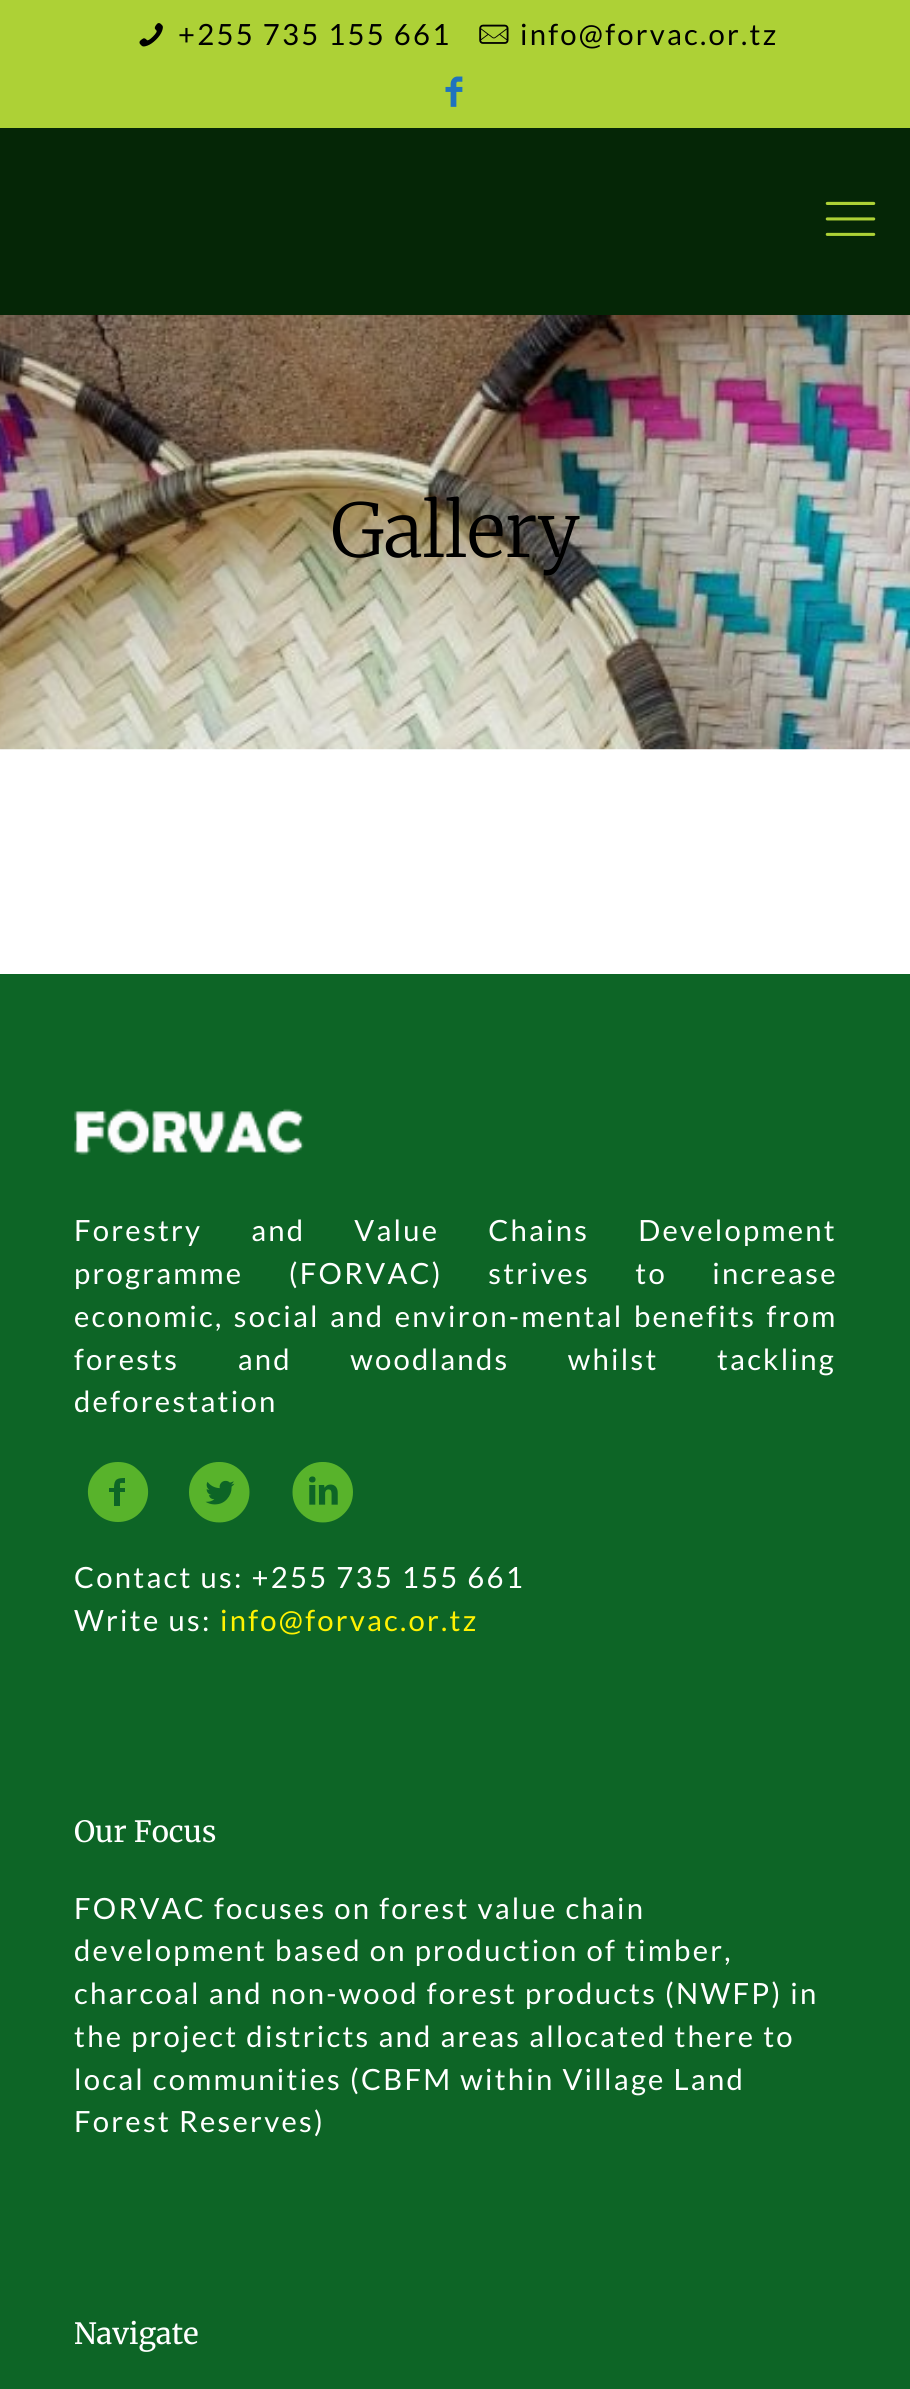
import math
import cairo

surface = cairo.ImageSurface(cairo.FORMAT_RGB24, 910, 2389)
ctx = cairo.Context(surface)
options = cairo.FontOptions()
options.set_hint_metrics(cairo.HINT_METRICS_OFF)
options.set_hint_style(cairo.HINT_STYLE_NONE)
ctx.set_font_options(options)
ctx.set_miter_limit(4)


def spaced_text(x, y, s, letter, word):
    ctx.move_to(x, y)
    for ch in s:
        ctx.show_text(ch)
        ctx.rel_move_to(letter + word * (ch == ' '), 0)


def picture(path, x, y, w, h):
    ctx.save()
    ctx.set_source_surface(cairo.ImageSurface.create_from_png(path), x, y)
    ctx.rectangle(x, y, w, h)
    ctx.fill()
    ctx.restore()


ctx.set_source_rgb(1, 1, 1)
ctx.paint()
ctx.set_source_rgb(0.678, 0.82, 0.212)
ctx.rectangle(0, 0, 910, 128)
ctx.fill()
picture("img1.png", 139, 23, 24, 24)
ctx.select_font_face("Lato")
ctx.set_font_size(29.25)
ctx.set_source_rgb(0, 0, 0)
spaced_text(178, 45, "+255 735 155 661", 2.25, 0)
picture("img2.png", 479, 24, 30, 20)
spaced_text(520, 45, "info@forvac.or.tz", 2.25, 0)
picture("img3.png", 445, 76, 18, 31)
ctx.set_source_rgb(0.02, 0.149, 0.024)
ctx.rectangle(0, 128, 910, 187)
ctx.fill()
picture("img4.png", 825, 201, 51, 35)
picture("img5.png", 0, 315, 910, 435)
ctx.select_font_face("Merriweather Light")
ctx.set_font_size(74)
ctx.set_source_rgb(0, 0, 0)
ctx.move_to(331, 557)
ctx.show_text("Gallery")
ctx.set_source_rgb(0.051, 0.396, 0.149)
ctx.rectangle(0, 974, 910, 1415)
ctx.fill()
picture("img6.png", 74, 1108, 230, 47)
ctx.select_font_face("Lato")
ctx.set_font_size(29.25)
ctx.set_source_rgb(1, 1, 1)
spaced_text(74, 1241, "Forestry and Value Chains Development", 2.25, 41)
spaced_text(74, 1284, "programme (FORVAC) strives to increase", 2.25, 37.5)
spaced_text(74, 1327, "economic, social and environ-mental benefits from", 2.25, 2.5)
spaced_text(74, 1370, "forests and woodlands whilst tackling", 2.25, 50.5)
spaced_text(74, 1412, "deforestation", 2.25, 0)
ctx.set_source_rgb(0.345, 0.702, 0.169)
ctx.new_path()
ctx.move_to(118, 1462)
ctx.curve_to(125, 1462, 132, 1464, 137, 1469)
ctx.curve_to(159, 1487, 146, 1522, 118, 1522)
ctx.curve_to(90, 1522, 77, 1487, 99, 1469)
ctx.curve_to(104, 1464, 111, 1462, 118, 1462)
ctx.close_path()
ctx.move_to(125, 1483)
ctx.line_to(125, 1478)
ctx.curve_to(117, 1478, 114, 1479, 114, 1488)
ctx.line_to(109, 1488)
ctx.line_to(109, 1492)
ctx.line_to(114, 1492)
ctx.line_to(114, 1506)
ctx.line_to(120, 1506)
ctx.line_to(120, 1492)
ctx.line_to(125, 1492)
ctx.line_to(125, 1488)
ctx.line_to(120, 1488)
ctx.curve_to(120, 1482, 119, 1483, 125, 1483)
ctx.close_path()
ctx.fill()
picture("img7.png", 189, 1462, 61, 61)
picture("img8.png", 292, 1462, 61, 61)
ctx.set_source_rgb(1, 1, 1)
spaced_text(74, 1588, "Contact us: +255 735 155 661", 2.25, 0)
spaced_text(74, 1631, "Write us:", 2.25, 0)
ctx.set_source_rgb(1, 0.949, 0.008)
spaced_text(220, 1631, "info@forvac.or.tz", 2.25, 0)
ctx.select_font_face("Merriweather")
ctx.set_source_rgb(1, 1, 1)
ctx.move_to(74, 1842)
ctx.show_text("Our Focus")
ctx.select_font_face("Lato")
spaced_text(74, 1919, "FORVAC focuses on forest value chain", 2.25, 0)
spaced_text(74, 1961, "development based on production of timber,", 2.25, 0)
spaced_text(74, 2004, "charcoal and non-wood forest products (NWFP) in", 2.25, 0)
spaced_text(74, 2047, "the project districts and areas allocated there to", 2.25, 0)
spaced_text(74, 2090, "local communities (CBFM within Village Land", 2.25, 0)
spaced_text(74, 2132, "Forest Reserves)", 2.25, 0)
ctx.select_font_face("Merriweather")
ctx.move_to(74, 2344)
ctx.show_text("Navigate")
surface.write_to_png("page.png")
